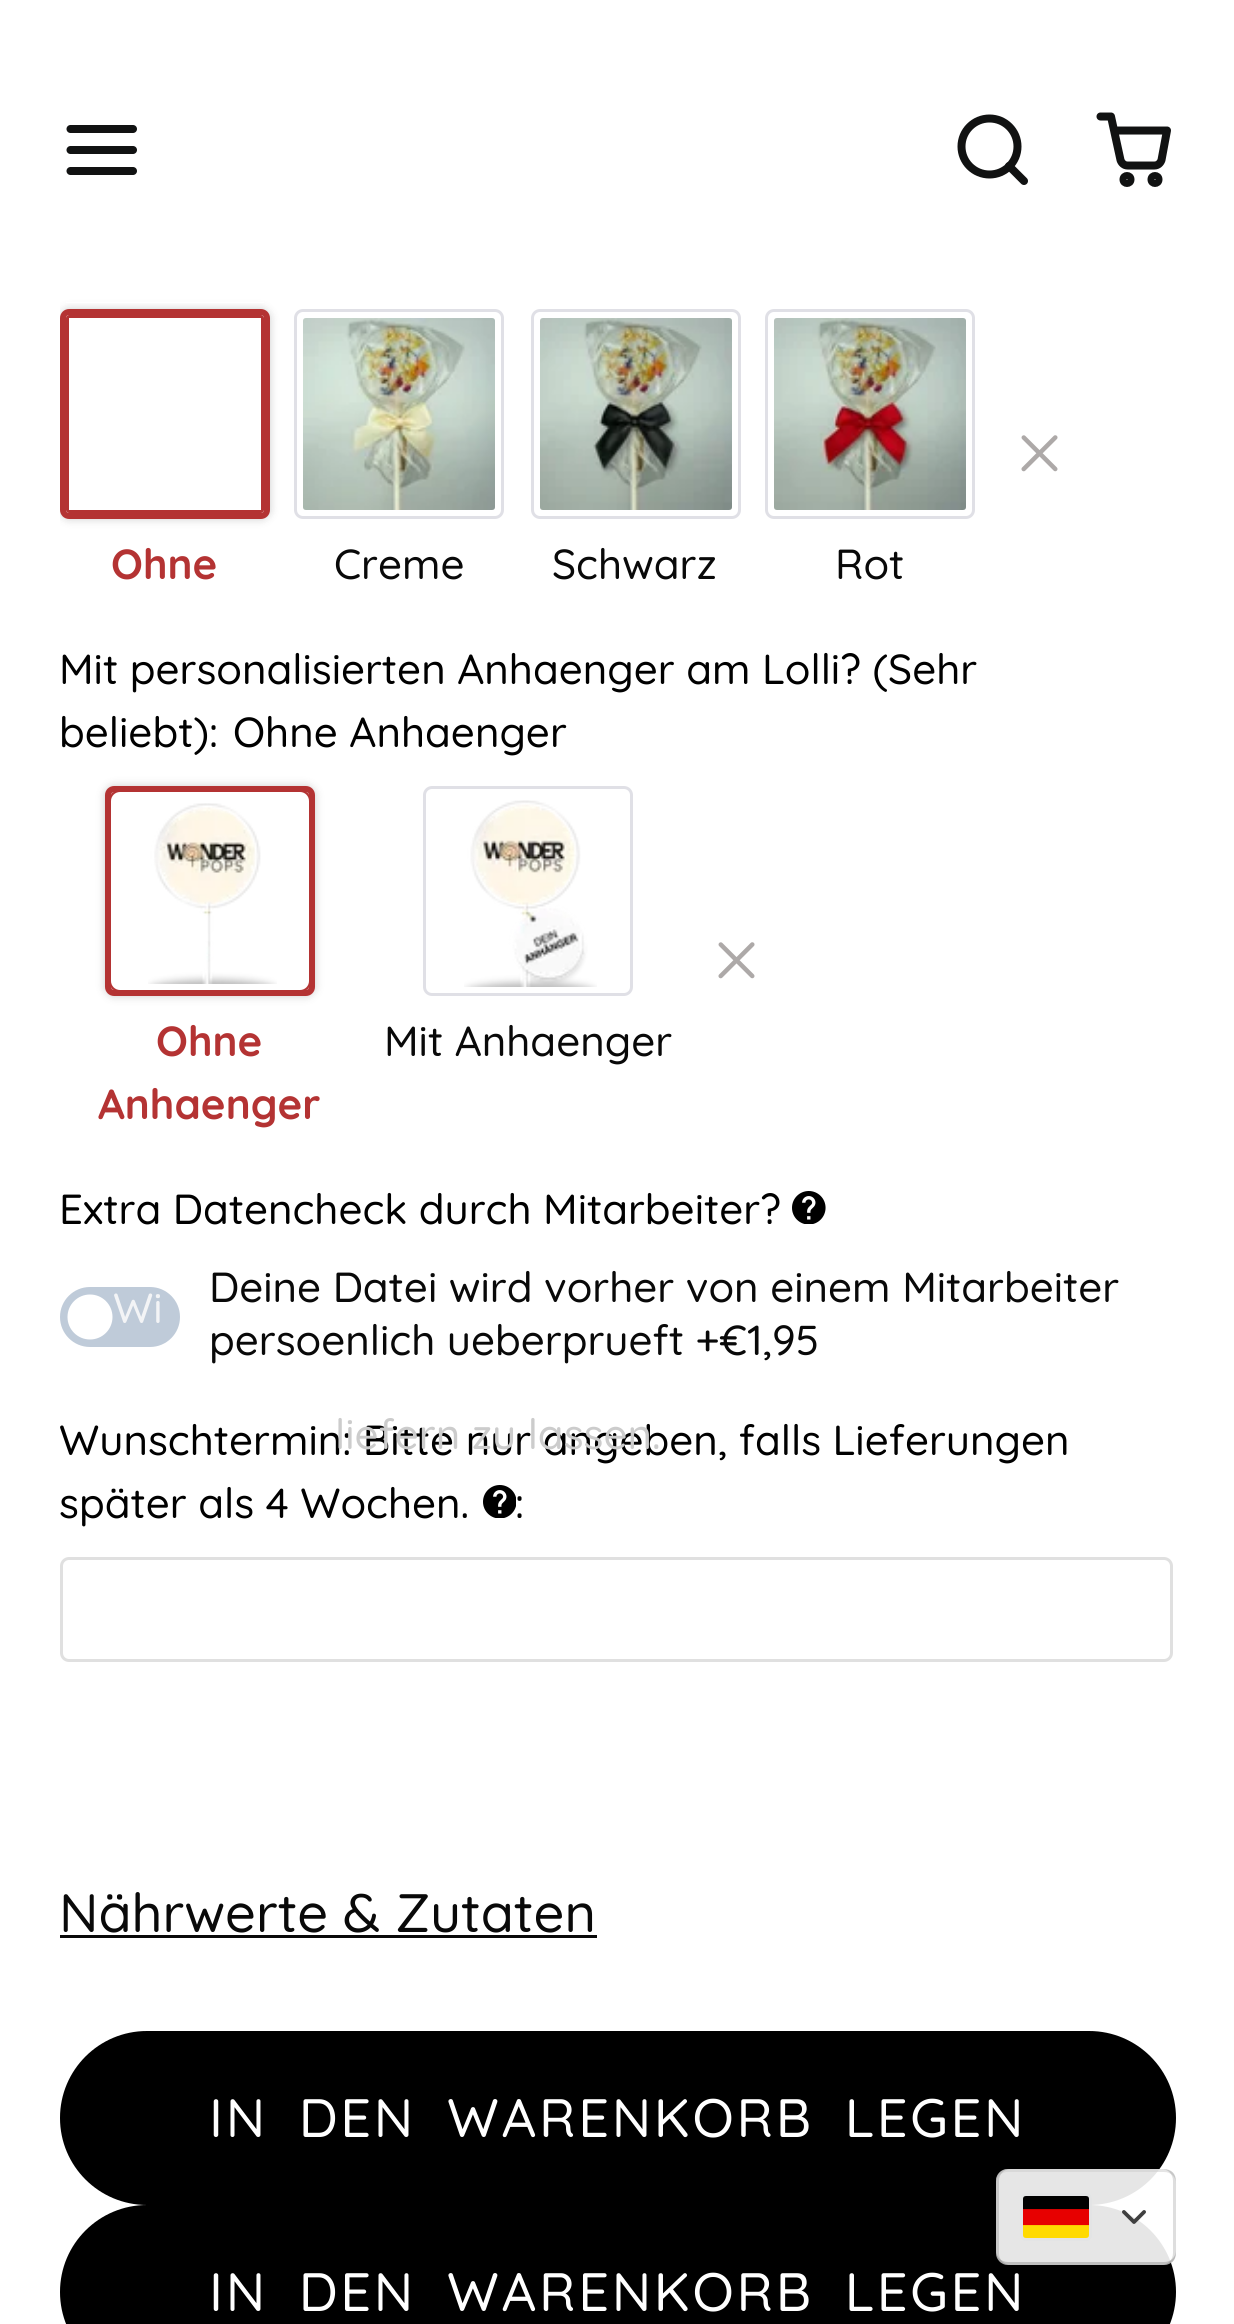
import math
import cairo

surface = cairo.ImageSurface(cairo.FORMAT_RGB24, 1234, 2324)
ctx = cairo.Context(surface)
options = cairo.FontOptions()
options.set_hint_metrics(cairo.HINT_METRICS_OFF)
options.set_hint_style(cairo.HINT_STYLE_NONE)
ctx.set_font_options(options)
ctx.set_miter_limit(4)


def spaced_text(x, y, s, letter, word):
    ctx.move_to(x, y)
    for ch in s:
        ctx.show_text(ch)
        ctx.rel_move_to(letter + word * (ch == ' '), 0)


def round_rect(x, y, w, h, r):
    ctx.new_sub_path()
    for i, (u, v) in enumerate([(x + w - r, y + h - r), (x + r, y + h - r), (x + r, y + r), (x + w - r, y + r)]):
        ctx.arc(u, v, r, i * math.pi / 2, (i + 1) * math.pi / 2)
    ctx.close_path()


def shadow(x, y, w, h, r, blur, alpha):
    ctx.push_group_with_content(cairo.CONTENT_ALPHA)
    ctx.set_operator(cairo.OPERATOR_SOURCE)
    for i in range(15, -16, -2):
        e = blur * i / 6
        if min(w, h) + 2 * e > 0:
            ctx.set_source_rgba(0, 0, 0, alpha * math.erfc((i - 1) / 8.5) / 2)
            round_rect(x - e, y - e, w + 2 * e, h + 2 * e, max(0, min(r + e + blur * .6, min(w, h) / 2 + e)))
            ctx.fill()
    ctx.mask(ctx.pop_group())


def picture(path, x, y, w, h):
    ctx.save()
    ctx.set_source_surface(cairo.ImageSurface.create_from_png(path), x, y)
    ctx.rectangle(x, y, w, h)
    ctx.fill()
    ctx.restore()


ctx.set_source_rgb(1, 1, 1)
ctx.paint()
ctx.save()
ctx.rectangle(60, 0, 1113, 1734)
ctx.clip()
ctx.set_source_rgb(0, 0, 0)
shadow(60, 309, 210, 210, 9, 4.5, 0.2)
ctx.restore()
ctx.set_source_rgb(1, 1, 1)
ctx.rectangle(66, 302, 198, 1)
ctx.fill()
ctx.new_path()
ctx.move_to(70.5, 150)
ctx.line_to(133, 150)
ctx.set_source_rgb(0.067, 0.071, 0.071)
ctx.set_line_width(8)
ctx.set_line_cap(cairo.LINE_CAP_ROUND)
ctx.set_line_join(cairo.LINE_JOIN_ROUND)
ctx.stroke()
ctx.new_path()
ctx.move_to(70.5, 129)
ctx.line_to(133, 129)
ctx.stroke()
ctx.new_path()
ctx.move_to(70.5, 171)
ctx.line_to(133, 171)
ctx.stroke()
ctx.arc(989.5, 146.5, 28, 0, 2 * math.pi)
ctx.set_line_cap(cairo.LINE_CAP_BUTT)
ctx.set_line_join(cairo.LINE_JOIN_MITER)
ctx.stroke()
ctx.new_path()
ctx.move_to(1024, 181)
ctx.line_to(1009, 166)
ctx.set_line_cap(cairo.LINE_CAP_ROUND)
ctx.set_line_join(cairo.LINE_JOIN_ROUND)
ctx.stroke()
ctx.arc(1127, 179.5, 3.5, 0, 2 * math.pi)
ctx.set_line_cap(cairo.LINE_CAP_BUTT)
ctx.set_line_join(cairo.LINE_JOIN_MITER)
ctx.stroke()
ctx.arc(1155, 179.5, 3.5, 0, 2 * math.pi)
ctx.stroke()
ctx.new_path()
ctx.move_to(1100.5, 116.5)
ctx.line_to(1111, 116.5)
ctx.line_to(1120.5, 160)
ctx.curve_to(1121.5, 163, 1124, 165.5, 1127.5, 165.5)
ctx.line_to(1154.5, 165.5)
ctx.curve_to(1158, 165.5, 1160.5, 163, 1161.5, 160)
ctx.line_to(1167, 130.5)
ctx.line_to(1117, 130.5)
ctx.set_line_cap(cairo.LINE_CAP_ROUND)
ctx.set_line_join(cairo.LINE_JOIN_ROUND)
ctx.stroke()
picture("img1.png", 1021, 435, 37, 37)
ctx.set_source_rgb(1, 1, 1)
round_rect(60, 309, 210, 210, 9)
ctx.fill()
round_rect(67.5, 316.5, 195, 195, 1.5)
ctx.set_source_rgb(0.706, 0.2, 0.2)
ctx.set_line_width(3)
ctx.set_line_cap(cairo.LINE_CAP_BUTT)
ctx.set_line_join(cairo.LINE_JOIN_MITER)
ctx.stroke()
round_rect(63, 312, 204, 204, 6)
ctx.set_line_width(6)
ctx.stroke()
ctx.select_font_face("Quicksand", cairo.FONT_SLANT_NORMAL, cairo.FONT_WEIGHT_BOLD)
ctx.set_font_size(42)
ctx.move_to(111, 579)
ctx.show_text("Ohne")
round_rect(295.5, 310.5, 207, 207, 7.5)
ctx.set_source_rgb(0.878, 0.878, 0.902)
ctx.set_line_width(3)
ctx.stroke()
picture("img2.png", 303, 318, 192, 192)
ctx.select_font_face("Quicksand Medium")
ctx.set_source_rgb(0.039, 0.039, 0.039)
ctx.move_to(334, 579)
ctx.show_text("Creme")
round_rect(532.5, 310.5, 207, 207, 7.5)
ctx.set_source_rgb(0.878, 0.878, 0.902)
ctx.stroke()
picture("img3.png", 540, 318, 192, 192)
ctx.set_source_rgb(0.039, 0.039, 0.039)
ctx.move_to(552, 579)
ctx.show_text("Schwarz")
round_rect(766.5, 310.5, 207, 207, 7.5)
ctx.set_source_rgb(0.878, 0.878, 0.902)
ctx.stroke()
picture("img4.png", 774, 318, 192, 192)
ctx.set_source_rgb(0.039, 0.039, 0.039)
ctx.move_to(835, 579)
ctx.show_text("Rot")
ctx.set_source_rgb(0, 0, 0)
ctx.move_to(59, 684)
ctx.show_text("Mit personalisierten Anhaenger am Lolli? (Sehr")
ctx.move_to(59, 747)
ctx.show_text("beliebt):")
ctx.move_to(233, 747)
ctx.show_text("Ohne Anhaenger")
picture("img1.png", 718, 942, 37, 37)
ctx.set_source_rgb(0, 0, 0)
shadow(105, 786, 210, 210, 9, 4.5, 0.2)
ctx.set_source_rgb(1, 1, 1)
round_rect(105, 786, 210, 210, 9)
ctx.fill()
round_rect(112.5, 793.5, 195, 195, 1.5)
ctx.set_source_rgb(0.706, 0.2, 0.2)
ctx.stroke()
round_rect(108, 789, 204, 204, 6)
ctx.set_line_width(6)
ctx.stroke()
round_rect(114, 795, 192, 192, 6)
ctx.set_source_rgb(1, 1, 1)
ctx.stroke()
picture("img5.png", 148, 803, 129, 181)
ctx.select_font_face("Quicksand", cairo.FONT_SLANT_NORMAL, cairo.FONT_WEIGHT_BOLD)
ctx.set_source_rgb(0.706, 0.2, 0.2)
ctx.move_to(156, 1056)
ctx.show_text("Ohne")
ctx.move_to(98, 1119)
ctx.show_text("Anhaenger")
round_rect(424.5, 787.5, 207, 207, 7.5)
ctx.set_source_rgb(0.878, 0.878, 0.902)
ctx.set_line_width(3)
ctx.stroke()
picture("img6.png", 464, 800, 133, 187)
ctx.select_font_face("Quicksand Medium")
ctx.set_source_rgb(0.039, 0.039, 0.039)
ctx.move_to(384, 1056)
ctx.show_text("Mit Anhaenger")
ctx.set_source_rgb(0, 0, 0)
ctx.move_to(59, 1224)
ctx.show_text("Extra Datencheck durch Mitarbeiter?")
picture("img7.png", 792, 1191, 34, 33)
ctx.set_source_rgb(0.749, 0.796, 0.851)
round_rect(60, 1287, 120, 60, 30)
ctx.fill()
ctx.set_source_rgb(1, 1, 1)
ctx.arc(90, 1317, 22.5, 0, 2 * math.pi)
ctx.fill()
ctx.set_source_rgb(0.039, 0.039, 0.039)
ctx.move_to(209, 1302)
ctx.show_text("Deine Datei wird vorher von einem Mitarbeiter")
ctx.move_to(209, 1355)
ctx.show_text("persoenlich ueberprueft +€1,95")
ctx.set_source_rgb(0.953, 0.957, 0.961)
ctx.move_to(113, 1323)
ctx.show_text("Wi")
ctx.set_source_rgb(0, 0, 0)
ctx.move_to(59, 1455)
ctx.show_text("Wunschtermin: Bitte nur angeben, falls Lieferungen")
ctx.set_source_rgb(0.8, 0.8, 0.8)
ctx.move_to(335, 1449)
ctx.show_text("liefern zu lassen.")
picture("img8.png", 483, 1485, 33, 33)
ctx.set_source_rgb(0, 0, 0)
ctx.move_to(59, 1518)
ctx.show_text("später als 4 Wochen.")
ctx.move_to(515, 1518)
ctx.show_text(":")
round_rect(61.5, 1558.5, 1110, 102, 7.5)
ctx.set_source_rgb(0.878, 0.878, 0.878)
ctx.stroke()
ctx.set_font_size(54)
ctx.set_source_rgb(0.039, 0.039, 0.039)
ctx.move_to(59, 1932)
ctx.show_text("Nährwerte & Zutaten")
ctx.rectangle(60, 1935, 537, 3)
ctx.fill()
ctx.set_source_rgb(0, 0, 0)
round_rect(60, 2031, 1116, 174, 87)
ctx.fill()
ctx.set_source_rgb(1, 1, 1)
spaced_text(209, 2137, "IN DEN WARENKORB LEGEN", 2.7, 13.5)
ctx.set_source_rgb(0, 0, 0)
round_rect(60, 2205, 1116, 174, 87)
ctx.fill()
ctx.set_source_rgb(1, 1, 1)
spaced_text(209, 2311, "IN DEN WARENKORB LEGEN", 2.7, 13.5)
ctx.set_source_rgba(1, 1, 1, 0.9)
round_rect(996, 2169, 180, 96, 12)
ctx.fill()
ctx.set_source_rgba(0.8, 0.8, 0.8, 0.5)
ctx.new_path()
ctx.move_to(1008, 2172)
ctx.line_to(1164, 2172)
ctx.curve_to(1171, 2172, 1176, 2177, 1176, 2184)
ctx.line_to(1176, 2181)
ctx.curve_to(1176, 2174, 1171, 2169, 1164, 2169)
ctx.line_to(1008, 2169)
ctx.curve_to(1001, 2169, 996, 2174, 996, 2181)
ctx.line_to(996, 2184)
ctx.curve_to(996, 2177, 1001, 2172, 1008, 2172)
ctx.close_path()
ctx.fill()
ctx.set_source_rgba(0, 0, 0, 0.17)
ctx.new_path()
ctx.move_to(996, 2250)
ctx.line_to(996, 2253)
ctx.curve_to(996, 2260, 1001, 2265, 1008, 2265)
ctx.line_to(1164, 2265)
ctx.curve_to(1171, 2265, 1176, 2260, 1176, 2253)
ctx.line_to(1176, 2250)
ctx.curve_to(1176, 2257, 1171, 2262, 1164, 2262)
ctx.line_to(1008, 2262)
ctx.curve_to(1001, 2262, 996, 2257, 996, 2250)
ctx.close_path()
ctx.fill()
ctx.set_source_rgba(0, 0, 0, 0.13)
ctx.new_path()
ctx.move_to(1161, 2265)
ctx.curve_to(1178, 2265, 1176, 2255, 1176, 2241)
ctx.line_to(1176, 2193)
ctx.curve_to(1176, 2179, 1178, 2169, 1161, 2169)
ctx.curve_to(1168, 2169, 1173, 2174, 1173, 2181)
ctx.line_to(1173, 2253)
ctx.curve_to(1173, 2260, 1168, 2265, 1161, 2265)
ctx.close_path()
ctx.fill()
ctx.new_path()
ctx.move_to(1008, 2169)
ctx.curve_to(1001, 2169, 996, 2174, 996, 2181)
ctx.line_to(996, 2253)
ctx.curve_to(996, 2260, 1001, 2265, 1008, 2265)
ctx.line_to(1011, 2265)
ctx.curve_to(1004, 2265, 999, 2260, 999, 2253)
ctx.line_to(999, 2181)
ctx.curve_to(999, 2174, 1004, 2169, 1011, 2169)
ctx.close_path()
ctx.fill()
round_rect(1021.5, 2194.5, 69, 45, 4.5)
ctx.set_source_rgb(0.89, 0.894, 0.898)
ctx.stroke()
picture("img9.png", 1023, 2196, 66, 42)
picture("img10.png", 1122, 2210, 24, 14)
surface.write_to_png("page.png")
